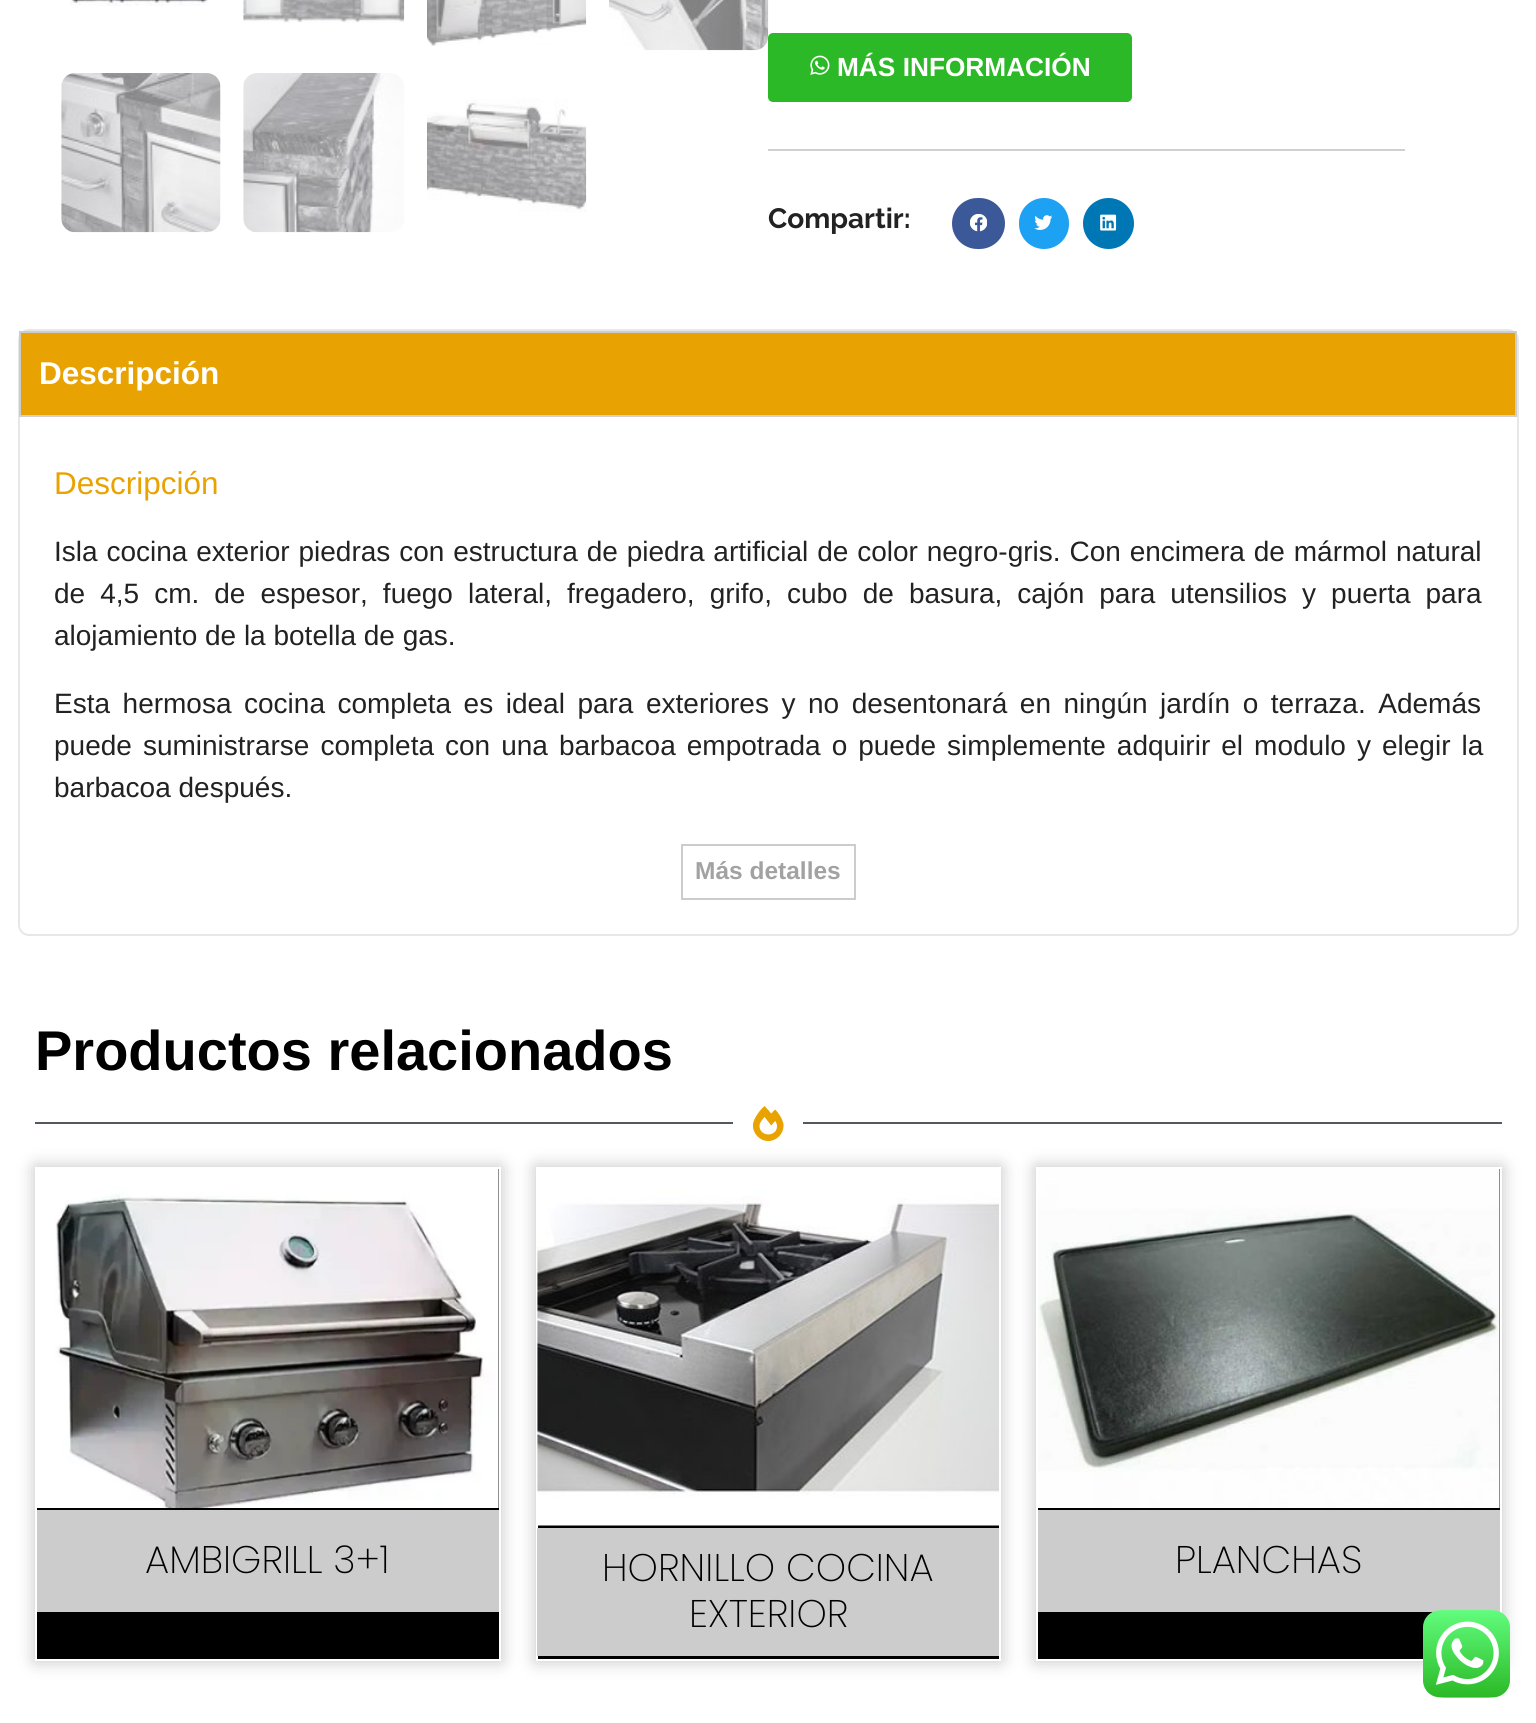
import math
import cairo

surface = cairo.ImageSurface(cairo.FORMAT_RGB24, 1536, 1723)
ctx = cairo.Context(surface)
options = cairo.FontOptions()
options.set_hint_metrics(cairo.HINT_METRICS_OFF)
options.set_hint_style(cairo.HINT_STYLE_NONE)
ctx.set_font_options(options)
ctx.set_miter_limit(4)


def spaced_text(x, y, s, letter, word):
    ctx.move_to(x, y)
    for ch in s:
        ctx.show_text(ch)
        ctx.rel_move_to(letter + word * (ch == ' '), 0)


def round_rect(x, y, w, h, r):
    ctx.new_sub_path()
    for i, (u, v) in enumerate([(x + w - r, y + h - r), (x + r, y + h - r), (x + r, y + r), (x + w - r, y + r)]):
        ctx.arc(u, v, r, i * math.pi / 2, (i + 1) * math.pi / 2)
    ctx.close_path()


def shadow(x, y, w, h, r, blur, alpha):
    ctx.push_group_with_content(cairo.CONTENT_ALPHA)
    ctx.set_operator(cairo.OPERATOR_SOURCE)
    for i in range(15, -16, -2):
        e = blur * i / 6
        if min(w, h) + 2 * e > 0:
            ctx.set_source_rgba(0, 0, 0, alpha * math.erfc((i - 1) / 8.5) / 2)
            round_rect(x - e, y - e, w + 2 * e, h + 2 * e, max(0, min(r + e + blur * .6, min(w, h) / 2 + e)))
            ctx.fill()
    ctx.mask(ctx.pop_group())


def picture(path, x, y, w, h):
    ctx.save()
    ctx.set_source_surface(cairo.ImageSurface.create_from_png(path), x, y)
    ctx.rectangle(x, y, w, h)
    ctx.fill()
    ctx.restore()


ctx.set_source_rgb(1, 1, 1)
ctx.paint()
picture("img1.png", 70, 0, 138, 6)
picture("img2.png", 243, 0, 162, 23)
picture("img3.png", 427, 0, 160, 46)
picture("img4.png", 609, 0, 160, 51)
picture("img5.png", 61, 73, 160, 160)
picture("img6.png", 243, 73, 161, 160)
picture("img7.png", 427, 98, 160, 115)
ctx.set_source_rgb(0.173, 0.725, 0.153)
round_rect(768, 33, 364, 69, 5)
ctx.fill()
picture("img8.png", 810, 55, 20, 20)
ctx.select_font_face("Liberation Sans", cairo.FONT_SLANT_NORMAL, cairo.FONT_WEIGHT_BOLD)
ctx.set_font_size(26.25)
ctx.set_source_rgb(1, 1, 1)
ctx.move_to(837, 76)
ctx.show_text("MÁS INFORMACIÓN")
ctx.set_source_rgb(0.827, 0.808, 0.824)
ctx.rectangle(768, 149, 637, 2)
ctx.fill()
ctx.select_font_face("Raleway", cairo.FONT_SLANT_NORMAL, cairo.FONT_WEIGHT_BOLD)
ctx.set_font_size(28)
ctx.set_source_rgb(0.133, 0.133, 0.133)
ctx.move_to(768, 228)
ctx.show_text("Compartir:")
ctx.set_source_rgb(0.231, 0.349, 0.596)
round_rect(952, 198, 53, 51, 25.5)
ctx.fill()
picture("img9.png", 970, 214, 17, 18)
ctx.set_source_rgb(0.114, 0.631, 0.949)
round_rect(1019, 198, 50, 51, 25)
ctx.fill()
picture("img10.png", 1034, 215, 18, 15)
ctx.set_source_rgb(0, 0.467, 0.71)
ctx.arc(1108.5, 223.5, 25.5, 0, 2 * math.pi)
ctx.fill()
picture("img11.png", 1100, 214, 17, 17)
round_rect(19, 330, 1499, 605, 10)
ctx.set_source_rgb(0.906, 0.906, 0.906)
ctx.stroke()
ctx.set_source_rgb(0.91, 0.639, 0.008)
ctx.rectangle(20, 332, 1496, 84)
ctx.fill_preserve()
ctx.set_source_rgb(0.8, 0.8, 0.8)
ctx.stroke()
ctx.select_font_face("Liberation Sans", cairo.FONT_SLANT_NORMAL, cairo.FONT_WEIGHT_BOLD)
ctx.set_font_size(31.5)
ctx.set_source_rgb(1, 1, 1)
ctx.move_to(39, 384)
ctx.show_text("Descripción")
ctx.set_source_rgb(0.827, 0.808, 0.824)
ctx.rectangle(19, 415, 1498, 2)
ctx.fill()
ctx.select_font_face("Liberation Sans")
ctx.set_source_rgb(0.91, 0.639, 0.008)
ctx.move_to(54, 494)
ctx.show_text("Descripción")
ctx.set_font_size(28)
ctx.set_source_rgb(0.133, 0.133, 0.133)
spaced_text(54, 561, "Isla cocina exterior piedras con estructura de piedra artificial de color negro-gris. Con encimera de mármol natural", 0, 1.1)
spaced_text(54, 603, "de 4,5 cm. de espesor, fuego lateral, fregadero, grifo, cubo de basura, cajón para utensilios y puerta para", 0, 7.25)
ctx.move_to(54, 645)
ctx.show_text("alojamiento de la botella de gas.")
spaced_text(54, 713, "Esta hermosa cocina completa es ideal para exteriores y no desentonará en ningún jardín o terraza. Además", 0, 4.75)
spaced_text(54, 755, "puede suministrarse completa con una barbacoa empotrada o puede simplemente adquirir el modulo y elegir la", 0, 3.25)
ctx.move_to(54, 797)
ctx.show_text("barbacoa después.")
ctx.rectangle(682, 845, 173, 54)
ctx.set_source_rgb(0.8, 0.8, 0.8)
ctx.stroke()
ctx.select_font_face("Liberation Sans", cairo.FONT_SLANT_NORMAL, cairo.FONT_WEIGHT_BOLD)
ctx.set_font_size(24.5)
ctx.set_source_rgb(0.635, 0.635, 0.635)
ctx.move_to(695, 879)
ctx.show_text("Más detalles")
ctx.set_font_size(56)
ctx.set_source_rgb(0, 0, 0)
ctx.move_to(35, 1070)
ctx.show_text("Productos relacionados")
ctx.set_source_rgb(0.329, 0.349, 0.373)
ctx.rectangle(35, 1122, 698, 2)
ctx.fill()
picture("img12.png", 752, 1106, 32, 35)
ctx.rectangle(803, 1122, 699, 2)
ctx.fill()
ctx.set_source_rgb(0, 0, 0)
shadow(35, 1167, 466, 494, 0, 9, 0.24)
ctx.set_source_rgb(0, 0, 0)
ctx.rectangle(36, 1168, 464, 492)
ctx.fill_preserve()
ctx.set_source_rgb(1, 1, 1)
ctx.stroke()
picture("img13.png", 37, 1169, 462, 339)
ctx.set_source_rgb(0.8, 0.8, 0.8)
ctx.rectangle(37, 1510, 462, 102)
ctx.fill()
ctx.select_font_face("Poppins ExtraLight")
ctx.set_font_size(38.5)
ctx.set_source_rgb(0, 0, 0)
ctx.move_to(145, 1573)
ctx.show_text("AMBIGRILL 3+1")
ctx.set_source_rgb(0, 0, 0)
shadow(536, 1167, 465, 494, 0, 9, 0.24)
ctx.set_source_rgb(0, 0, 0)
ctx.rectangle(538, 1525, 461, 134)
ctx.fill()
ctx.rectangle(537, 1168, 463, 492)
ctx.set_source_rgb(1, 1, 1)
ctx.stroke()
picture("img14.png", 537, 1169, 462, 357)
ctx.set_source_rgb(0.8, 0.8, 0.8)
ctx.rectangle(537, 1528, 462, 128)
ctx.fill()
ctx.set_source_rgb(0, 0, 0)
ctx.move_to(602, 1581)
ctx.show_text("HORNILLO COCINA")
ctx.move_to(689, 1627)
ctx.show_text("EXTERIOR")
ctx.set_source_rgb(0, 0, 0)
shadow(1036, 1167, 466, 494, 0, 9, 0.24)
ctx.set_source_rgb(0, 0, 0)
ctx.rectangle(1037, 1168, 464, 492)
ctx.fill_preserve()
ctx.set_source_rgb(1, 1, 1)
ctx.stroke()
picture("img15.png", 1038, 1169, 462, 339)
ctx.set_source_rgb(0.8, 0.8, 0.8)
ctx.rectangle(1038, 1510, 462, 102)
ctx.fill()
ctx.set_source_rgb(0, 0, 0)
ctx.move_to(1175, 1573)
ctx.show_text("PLANCHAS")
picture("img16.png", 1423, 1610, 87, 88)
surface.write_to_png("page.png")
